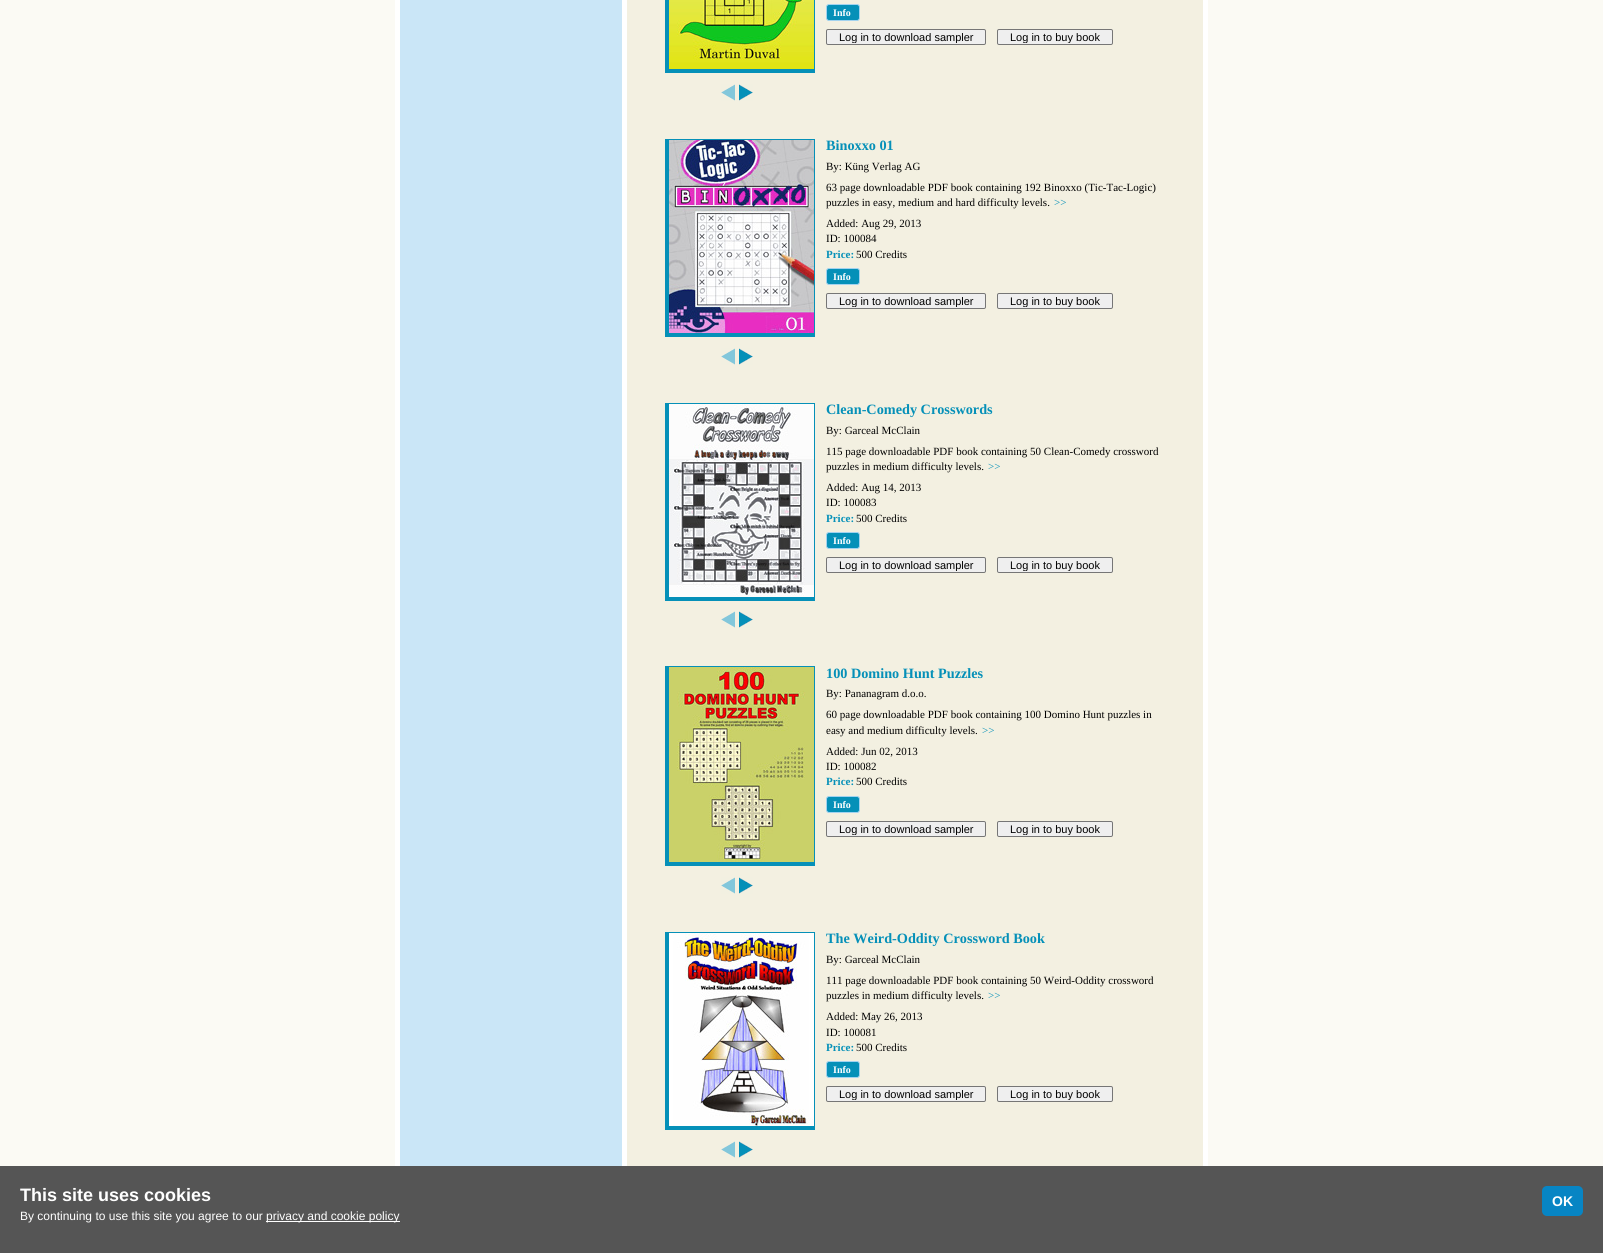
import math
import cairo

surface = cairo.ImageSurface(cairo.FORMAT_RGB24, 1603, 1253)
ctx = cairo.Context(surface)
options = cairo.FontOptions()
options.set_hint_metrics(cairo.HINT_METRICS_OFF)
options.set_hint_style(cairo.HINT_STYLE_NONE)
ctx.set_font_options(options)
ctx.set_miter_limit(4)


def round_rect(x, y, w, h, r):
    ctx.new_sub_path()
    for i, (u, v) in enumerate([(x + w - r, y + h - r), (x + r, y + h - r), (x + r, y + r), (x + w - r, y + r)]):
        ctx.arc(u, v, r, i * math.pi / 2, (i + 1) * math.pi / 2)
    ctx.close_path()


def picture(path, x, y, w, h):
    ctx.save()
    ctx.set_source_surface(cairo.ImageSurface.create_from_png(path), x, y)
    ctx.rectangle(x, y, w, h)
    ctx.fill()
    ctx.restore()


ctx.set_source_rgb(0.984, 0.98, 0.957)
ctx.paint()
ctx.set_source_rgb(1, 1, 1)
ctx.rectangle(395, 0, 813, 1166)
ctx.fill()
ctx.set_source_rgb(0.792, 0.902, 0.965)
ctx.rectangle(400, 0, 222, 1166)
ctx.fill()
ctx.set_source_rgb(0.953, 0.941, 0.882)
ctx.rectangle(627, 0, 576, 1166)
ctx.fill()
ctx.set_source_rgb(0.02, 0.565, 0.722)
ctx.rectangle(814, 0, 1, 73)
ctx.fill()
ctx.rectangle(665, 69, 150, 4)
ctx.fill()
ctx.rectangle(665, 0, 4, 73)
ctx.fill()
picture("img1.png", 669, 0, 145, 69)
picture("img2.png", 721, 84, 14, 17)
picture("img3.png", 739, 84, 14, 17)
round_rect(826.5, 4.5, 33, 16, 2.5)
ctx.fill_preserve()
ctx.set_source_rgb(0.639, 0.827, 0.937)
ctx.set_line_width(1)
ctx.stroke()
ctx.select_font_face("Liberation Serif", cairo.FONT_SLANT_NORMAL, cairo.FONT_WEIGHT_BOLD)
ctx.set_font_size(10)
ctx.set_source_rgb(1, 1, 1)
ctx.move_to(833, 16)
ctx.show_text("Info")
ctx.set_source_rgb(0.937, 0.937, 0.937)
round_rect(826.5, 29.5, 159, 15, 1.5)
ctx.fill_preserve()
ctx.set_source_rgb(0.463, 0.463, 0.463)
ctx.stroke()
ctx.save()
ctx.rectangle(828, 31, 156, 12)
ctx.clip()
ctx.select_font_face("Liberation Sans")
ctx.set_font_size(11)
ctx.set_source_rgb(0, 0, 0)
ctx.move_to(839, 41)
ctx.show_text("Log in to download sampler")
ctx.restore()
ctx.set_source_rgb(0.937, 0.937, 0.937)
round_rect(997.5, 29.5, 115, 15, 1.5)
ctx.fill_preserve()
ctx.set_source_rgb(0.463, 0.463, 0.463)
ctx.stroke()
ctx.save()
ctx.rectangle(999, 31, 112, 12)
ctx.clip()
ctx.select_font_face("Liberation Sans")
ctx.set_font_size(11)
ctx.set_source_rgb(0, 0, 0)
ctx.move_to(1010, 41)
ctx.show_text("Log in to buy book")
ctx.restore()
ctx.set_source_rgb(0.02, 0.565, 0.722)
ctx.rectangle(665, 139, 150, 1)
ctx.fill()
ctx.rectangle(814, 139, 1, 198)
ctx.fill()
ctx.rectangle(665, 333, 150, 4)
ctx.fill()
ctx.rectangle(665, 139, 4, 198)
ctx.fill()
picture("img4.png", 669, 140, 145, 193)
picture("img2.png", 721, 348, 14, 17)
picture("img3.png", 739, 348, 14, 17)
ctx.set_font_size(14.25)
ctx.move_to(826, 150)
ctx.show_text("Binoxxo 01")
ctx.select_font_face("Liberation Serif")
ctx.set_font_size(11)
ctx.set_source_rgb(0, 0, 0)
ctx.move_to(826, 170)
ctx.show_text("By: Küng Verlag AG")
ctx.move_to(826, 191)
ctx.show_text("63 page downloadable PDF book containing 192 Binoxxo (Tic-Tac-Logic)")
ctx.move_to(826, 206)
ctx.show_text("puzzles in easy, medium and hard difficulty levels.")
ctx.set_source_rgb(0.02, 0.565, 0.722)
ctx.move_to(1054, 206)
ctx.show_text(">>")
ctx.set_source_rgb(0, 0, 0)
ctx.move_to(826, 227)
ctx.show_text("Added: Aug 29, 2013")
ctx.move_to(826, 242)
ctx.show_text("ID: 100084")
ctx.select_font_face("Liberation Serif", cairo.FONT_SLANT_NORMAL, cairo.FONT_WEIGHT_BOLD)
ctx.set_source_rgb(0.02, 0.565, 0.722)
ctx.move_to(826, 258)
ctx.show_text("Price:")
ctx.select_font_face("Liberation Serif")
ctx.set_source_rgb(0, 0, 0)
ctx.move_to(856, 258)
ctx.show_text("500 Credits")
ctx.set_source_rgb(0.02, 0.565, 0.722)
round_rect(826.5, 268.5, 33, 16, 2.5)
ctx.fill_preserve()
ctx.set_source_rgb(0.639, 0.827, 0.937)
ctx.stroke()
ctx.select_font_face("Liberation Serif", cairo.FONT_SLANT_NORMAL, cairo.FONT_WEIGHT_BOLD)
ctx.set_font_size(10)
ctx.set_source_rgb(1, 1, 1)
ctx.move_to(833, 280)
ctx.show_text("Info")
ctx.set_source_rgb(0.937, 0.937, 0.937)
round_rect(826.5, 293.5, 159, 15, 1.5)
ctx.fill_preserve()
ctx.set_source_rgb(0.463, 0.463, 0.463)
ctx.stroke()
ctx.save()
ctx.rectangle(828, 295, 156, 12)
ctx.clip()
ctx.select_font_face("Liberation Sans")
ctx.set_font_size(11)
ctx.set_source_rgb(0, 0, 0)
ctx.move_to(839, 305)
ctx.show_text("Log in to download sampler")
ctx.restore()
ctx.set_source_rgb(0.937, 0.937, 0.937)
round_rect(997.5, 293.5, 115, 15, 1.5)
ctx.fill_preserve()
ctx.set_source_rgb(0.463, 0.463, 0.463)
ctx.stroke()
ctx.save()
ctx.rectangle(999, 295, 112, 12)
ctx.clip()
ctx.select_font_face("Liberation Sans")
ctx.set_font_size(11)
ctx.set_source_rgb(0, 0, 0)
ctx.move_to(1010, 305)
ctx.show_text("Log in to buy book")
ctx.restore()
ctx.set_source_rgb(0.02, 0.565, 0.722)
ctx.rectangle(665, 403, 150, 1)
ctx.fill()
ctx.rectangle(814, 403, 1, 198)
ctx.fill()
ctx.rectangle(665, 597, 150, 4)
ctx.fill()
ctx.rectangle(665, 403, 4, 198)
ctx.fill()
picture("img5.png", 669, 404, 145, 193)
picture("img2.png", 721, 611, 14, 17)
picture("img3.png", 739, 611, 14, 17)
ctx.set_font_size(14.25)
ctx.move_to(826, 414)
ctx.show_text("Clean-Comedy Crosswords")
ctx.select_font_face("Liberation Serif")
ctx.set_font_size(11)
ctx.set_source_rgb(0, 0, 0)
ctx.move_to(826, 434)
ctx.show_text("By: Garceal McClain")
ctx.move_to(826, 455)
ctx.show_text("115 page downloadable PDF book containing 50 Clean-Comedy crossword")
ctx.move_to(826, 470)
ctx.show_text("puzzles in medium difficulty levels.")
ctx.set_source_rgb(0.02, 0.565, 0.722)
ctx.move_to(988, 470)
ctx.show_text(">>")
ctx.set_source_rgb(0, 0, 0)
ctx.move_to(826, 491)
ctx.show_text("Added: Aug 14, 2013")
ctx.move_to(826, 506)
ctx.show_text("ID: 100083")
ctx.select_font_face("Liberation Serif", cairo.FONT_SLANT_NORMAL, cairo.FONT_WEIGHT_BOLD)
ctx.set_source_rgb(0.02, 0.565, 0.722)
ctx.move_to(826, 522)
ctx.show_text("Price:")
ctx.select_font_face("Liberation Serif")
ctx.set_source_rgb(0, 0, 0)
ctx.move_to(856, 522)
ctx.show_text("500 Credits")
ctx.set_source_rgb(0.02, 0.565, 0.722)
round_rect(826.5, 532.5, 33, 16, 2.5)
ctx.fill_preserve()
ctx.set_source_rgb(0.639, 0.827, 0.937)
ctx.stroke()
ctx.select_font_face("Liberation Serif", cairo.FONT_SLANT_NORMAL, cairo.FONT_WEIGHT_BOLD)
ctx.set_font_size(10)
ctx.set_source_rgb(1, 1, 1)
ctx.move_to(833, 544)
ctx.show_text("Info")
ctx.set_source_rgb(0.937, 0.937, 0.937)
round_rect(826.5, 557.5, 159, 15, 1.5)
ctx.fill_preserve()
ctx.set_source_rgb(0.463, 0.463, 0.463)
ctx.stroke()
ctx.save()
ctx.rectangle(828, 559, 156, 12)
ctx.clip()
ctx.select_font_face("Liberation Sans")
ctx.set_font_size(11)
ctx.set_source_rgb(0, 0, 0)
ctx.move_to(839, 569)
ctx.show_text("Log in to download sampler")
ctx.restore()
ctx.set_source_rgb(0.937, 0.937, 0.937)
round_rect(997.5, 557.5, 115, 15, 1.5)
ctx.fill_preserve()
ctx.set_source_rgb(0.463, 0.463, 0.463)
ctx.stroke()
ctx.save()
ctx.rectangle(999, 559, 112, 12)
ctx.clip()
ctx.select_font_face("Liberation Sans")
ctx.set_font_size(11)
ctx.set_source_rgb(0, 0, 0)
ctx.move_to(1010, 569)
ctx.show_text("Log in to buy book")
ctx.restore()
ctx.set_source_rgb(0.02, 0.565, 0.722)
ctx.rectangle(665, 666, 150, 1)
ctx.fill()
ctx.rectangle(814, 666, 1, 200)
ctx.fill()
ctx.rectangle(665, 862, 150, 4)
ctx.fill()
ctx.rectangle(665, 666, 4, 200)
ctx.fill()
picture("img6.png", 669, 667, 145, 195)
picture("img2.png", 721, 877, 14, 17)
picture("img3.png", 739, 877, 14, 17)
ctx.set_font_size(14.25)
ctx.move_to(826, 678)
ctx.show_text("100 Domino Hunt Puzzles")
ctx.select_font_face("Liberation Serif")
ctx.set_font_size(11)
ctx.set_source_rgb(0, 0, 0)
ctx.move_to(826, 697)
ctx.show_text("By: Pananagram d.o.o.")
ctx.move_to(826, 718)
ctx.show_text("60 page downloadable PDF book containing 100 Domino Hunt puzzles in")
ctx.move_to(826, 734)
ctx.show_text("easy and medium difficulty levels.")
ctx.set_source_rgb(0.02, 0.565, 0.722)
ctx.move_to(982, 734)
ctx.show_text(">>")
ctx.set_source_rgb(0, 0, 0)
ctx.move_to(826, 755)
ctx.show_text("Added: Jun 02, 2013")
ctx.move_to(826, 770)
ctx.show_text("ID: 100082")
ctx.select_font_face("Liberation Serif", cairo.FONT_SLANT_NORMAL, cairo.FONT_WEIGHT_BOLD)
ctx.set_source_rgb(0.02, 0.565, 0.722)
ctx.move_to(826, 785)
ctx.show_text("Price:")
ctx.select_font_face("Liberation Serif")
ctx.set_source_rgb(0, 0, 0)
ctx.move_to(856, 785)
ctx.show_text("500 Credits")
ctx.set_source_rgb(0.02, 0.565, 0.722)
round_rect(826.5, 796.5, 33, 16, 2.5)
ctx.fill_preserve()
ctx.set_source_rgb(0.639, 0.827, 0.937)
ctx.stroke()
ctx.select_font_face("Liberation Serif", cairo.FONT_SLANT_NORMAL, cairo.FONT_WEIGHT_BOLD)
ctx.set_font_size(10)
ctx.set_source_rgb(1, 1, 1)
ctx.move_to(833, 808)
ctx.show_text("Info")
ctx.set_source_rgb(0.937, 0.937, 0.937)
round_rect(826.5, 821.5, 159, 15, 1.5)
ctx.fill_preserve()
ctx.set_source_rgb(0.463, 0.463, 0.463)
ctx.stroke()
ctx.save()
ctx.rectangle(828, 823, 156, 12)
ctx.clip()
ctx.select_font_face("Liberation Sans")
ctx.set_font_size(11)
ctx.set_source_rgb(0, 0, 0)
ctx.move_to(839, 833)
ctx.show_text("Log in to download sampler")
ctx.restore()
ctx.set_source_rgb(0.937, 0.937, 0.937)
round_rect(997.5, 821.5, 115, 15, 1.5)
ctx.fill_preserve()
ctx.set_source_rgb(0.463, 0.463, 0.463)
ctx.stroke()
ctx.save()
ctx.rectangle(999, 823, 112, 12)
ctx.clip()
ctx.select_font_face("Liberation Sans")
ctx.set_font_size(11)
ctx.set_source_rgb(0, 0, 0)
ctx.move_to(1010, 833)
ctx.show_text("Log in to buy book")
ctx.restore()
ctx.set_source_rgb(0.02, 0.565, 0.722)
ctx.rectangle(665, 932, 150, 1)
ctx.fill()
ctx.rectangle(814, 932, 1, 198)
ctx.fill()
ctx.rectangle(665, 1126, 150, 4)
ctx.fill()
ctx.rectangle(665, 932, 4, 198)
ctx.fill()
picture("img7.png", 669, 933, 145, 193)
picture("img2.png", 721, 1141, 14, 17)
picture("img3.png", 739, 1141, 14, 17)
ctx.set_font_size(14.25)
ctx.move_to(826, 943)
ctx.show_text("The Weird-Oddity Crossword Book")
ctx.select_font_face("Liberation Serif")
ctx.set_font_size(11)
ctx.set_source_rgb(0, 0, 0)
ctx.move_to(826, 963)
ctx.show_text("By: Garceal McClain")
ctx.move_to(826, 984)
ctx.show_text("111 page downloadable PDF book containing 50 Weird-Oddity crossword")
ctx.move_to(826, 999)
ctx.show_text("puzzles in medium difficulty levels.")
ctx.set_source_rgb(0.02, 0.565, 0.722)
ctx.move_to(988, 999)
ctx.show_text(">>")
ctx.set_source_rgb(0, 0, 0)
ctx.move_to(826, 1020)
ctx.show_text("Added: May 26, 2013")
ctx.move_to(826, 1036)
ctx.show_text("ID: 100081")
ctx.select_font_face("Liberation Serif", cairo.FONT_SLANT_NORMAL, cairo.FONT_WEIGHT_BOLD)
ctx.set_source_rgb(0.02, 0.565, 0.722)
ctx.move_to(826, 1051)
ctx.show_text("Price:")
ctx.select_font_face("Liberation Serif")
ctx.set_source_rgb(0, 0, 0)
ctx.move_to(856, 1051)
ctx.show_text("500 Credits")
ctx.set_source_rgb(0.02, 0.565, 0.722)
round_rect(826.5, 1061.5, 33, 16, 2.5)
ctx.fill_preserve()
ctx.set_source_rgb(0.639, 0.827, 0.937)
ctx.stroke()
ctx.select_font_face("Liberation Serif", cairo.FONT_SLANT_NORMAL, cairo.FONT_WEIGHT_BOLD)
ctx.set_font_size(10)
ctx.set_source_rgb(1, 1, 1)
ctx.move_to(833, 1073)
ctx.show_text("Info")
ctx.set_source_rgb(0.937, 0.937, 0.937)
round_rect(826.5, 1086.5, 159, 15, 1.5)
ctx.fill_preserve()
ctx.set_source_rgb(0.463, 0.463, 0.463)
ctx.stroke()
ctx.save()
ctx.rectangle(828, 1088, 156, 12)
ctx.clip()
ctx.select_font_face("Liberation Sans")
ctx.set_font_size(11)
ctx.set_source_rgb(0, 0, 0)
ctx.move_to(839, 1098)
ctx.show_text("Log in to download sampler")
ctx.restore()
ctx.set_source_rgb(0.937, 0.937, 0.937)
round_rect(997.5, 1086.5, 115, 15, 1.5)
ctx.fill_preserve()
ctx.set_source_rgb(0.463, 0.463, 0.463)
ctx.stroke()
ctx.save()
ctx.rectangle(999, 1088, 112, 12)
ctx.clip()
ctx.select_font_face("Liberation Sans")
ctx.set_font_size(11)
ctx.set_source_rgb(0, 0, 0)
ctx.move_to(1010, 1098)
ctx.show_text("Log in to buy book")
ctx.restore()
ctx.set_source_rgb(0.333, 0.333, 0.333)
ctx.rectangle(0, 1166, 1603, 87)
ctx.fill()
ctx.select_font_face("Liberation Sans", cairo.FONT_SLANT_NORMAL, cairo.FONT_WEIGHT_BOLD)
ctx.set_font_size(18)
ctx.set_source_rgb(1, 1, 1)
ctx.move_to(20, 1201)
ctx.show_text("This site uses cookies")
ctx.set_source_rgb(0.031, 0.522, 0.769)
round_rect(1542, 1186, 41, 30, 5)
ctx.fill()
ctx.set_font_size(14)
ctx.set_source_rgb(1, 1, 1)
ctx.move_to(1552, 1206)
ctx.show_text("OK")
ctx.select_font_face("Liberation Sans")
ctx.set_font_size(12)
ctx.move_to(20, 1220)
ctx.show_text("By continuing to use this site you agree to our")
ctx.rectangle(266, 1221, 134, 1)
ctx.fill()
ctx.move_to(266, 1220)
ctx.show_text("privacy and cookie policy")
surface.write_to_png("page.png")
